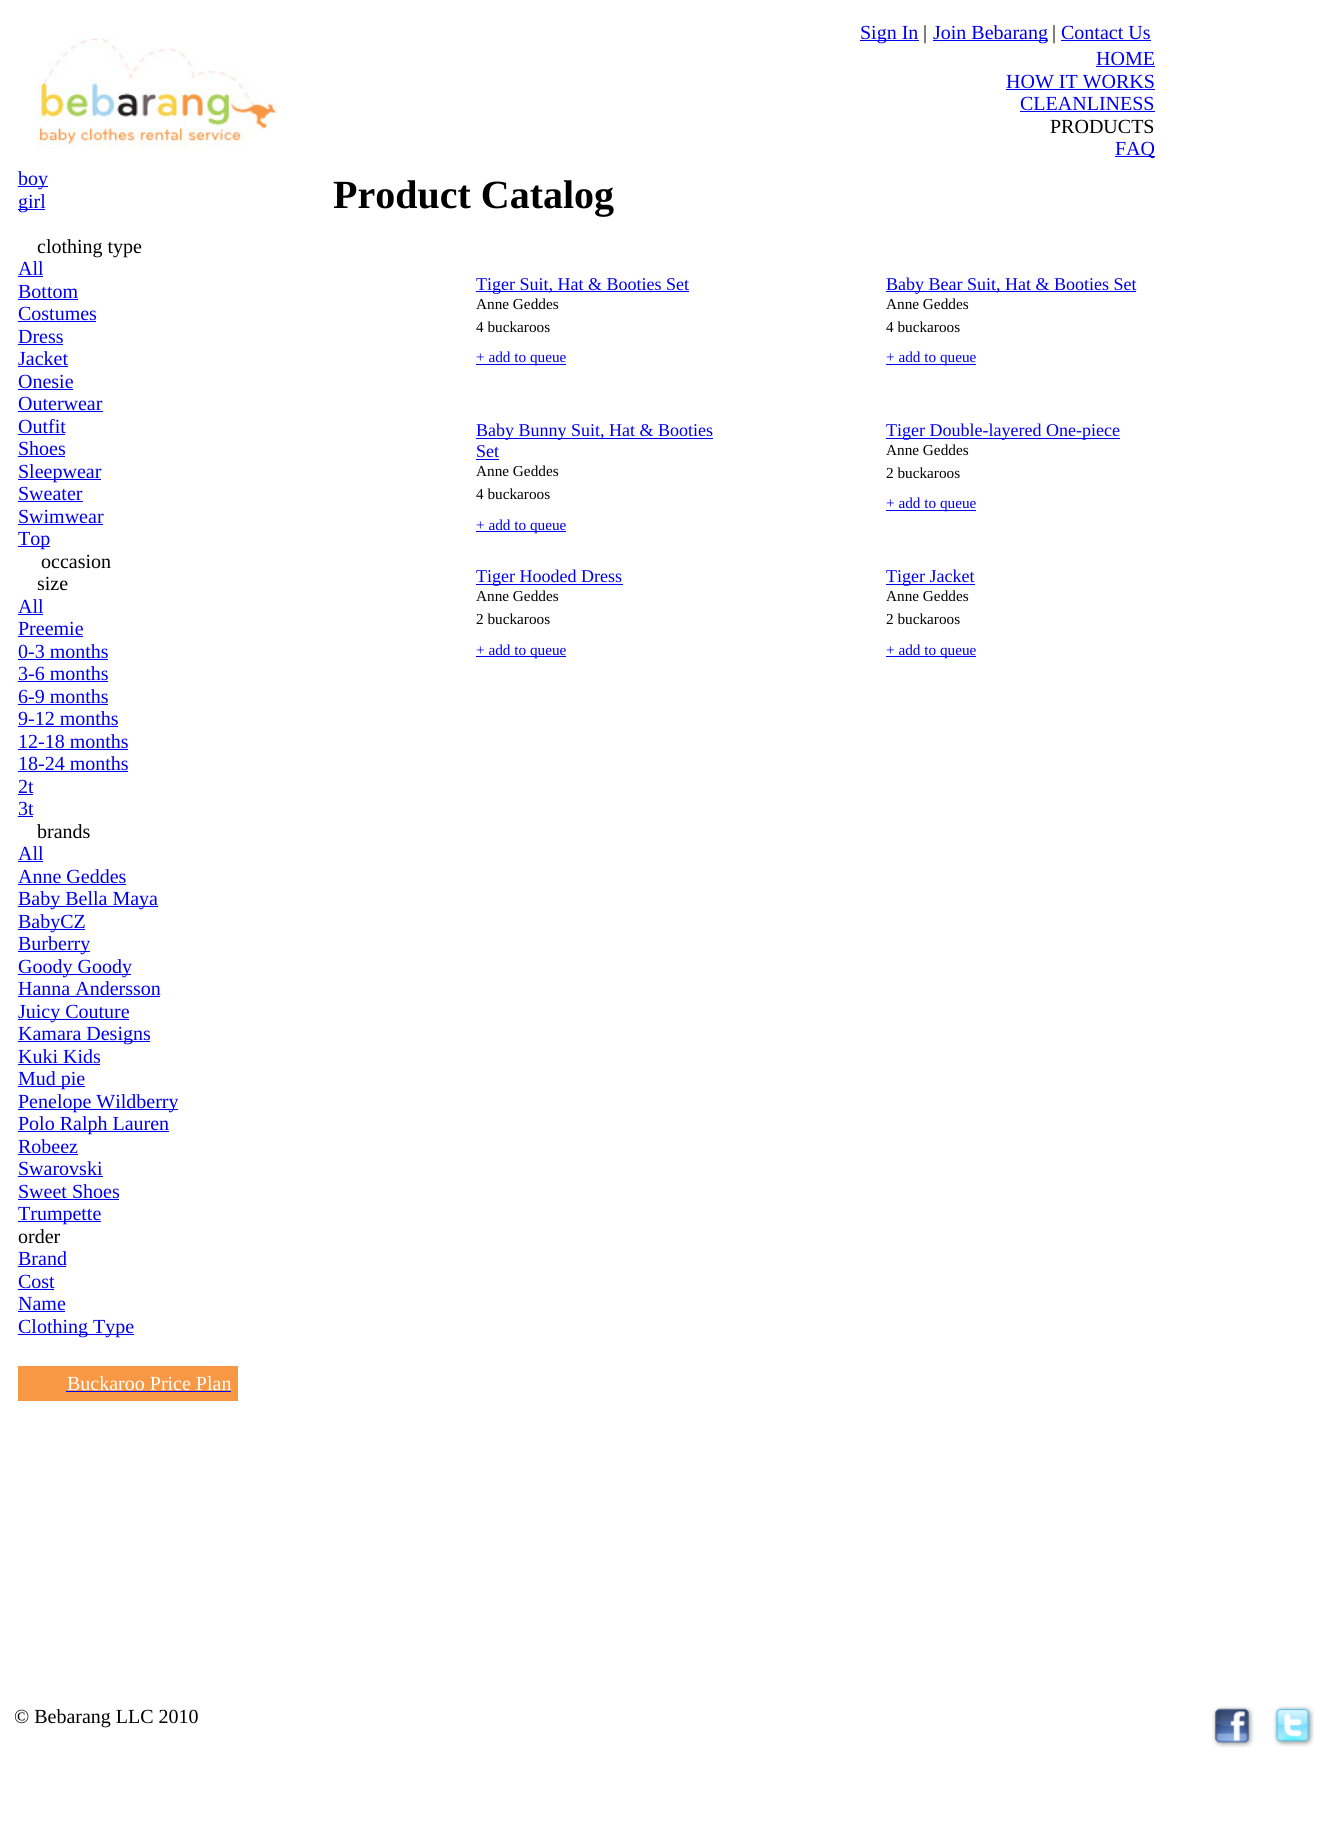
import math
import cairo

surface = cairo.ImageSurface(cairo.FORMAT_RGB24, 1329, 1826)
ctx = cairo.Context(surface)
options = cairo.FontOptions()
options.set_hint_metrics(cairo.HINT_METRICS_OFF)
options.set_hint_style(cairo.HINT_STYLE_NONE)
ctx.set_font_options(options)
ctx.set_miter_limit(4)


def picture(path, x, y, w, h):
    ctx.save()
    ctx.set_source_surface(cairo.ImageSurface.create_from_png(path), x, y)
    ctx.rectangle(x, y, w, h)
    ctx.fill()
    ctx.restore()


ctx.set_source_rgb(1, 1, 1)
ctx.paint()
picture("img1.png", 37, 38, 241, 111)
ctx.set_source_rgb(0, 0, 0.933)
ctx.rectangle(860, 40, 59, 1)
ctx.fill()
ctx.select_font_face("Liberation Serif")
ctx.set_font_size(20)
ctx.move_to(860, 39)
ctx.show_text("Sign In")
ctx.set_source_rgb(0, 0, 0)
ctx.move_to(923, 39)
ctx.show_text("|")
ctx.set_source_rgb(0, 0, 0.933)
ctx.rectangle(933, 40, 115, 1)
ctx.fill()
ctx.move_to(933, 39)
ctx.show_text("Join Bebarang")
ctx.set_source_rgb(0, 0, 0)
ctx.move_to(1052, 39)
ctx.show_text("|")
ctx.set_source_rgb(0, 0, 0.933)
ctx.move_to(1061, 39)
ctx.show_text("Contact Us")
ctx.rectangle(1061, 40, 90, 1)
ctx.fill()
ctx.move_to(1096, 65)
ctx.show_text("HOME")
ctx.rectangle(1096, 66, 59, 1)
ctx.fill()
ctx.move_to(1006, 88)
ctx.show_text("HOW IT WORKS")
ctx.rectangle(1006, 89, 149, 1)
ctx.fill()
ctx.move_to(1020, 110)
ctx.show_text("CLEANLINESS")
ctx.rectangle(1020, 111, 135, 1)
ctx.fill()
ctx.set_source_rgb(0, 0, 0)
ctx.move_to(1050, 133)
ctx.show_text("PRODUCTS")
ctx.set_source_rgb(0, 0, 0.933)
ctx.rectangle(1115, 156, 40, 1)
ctx.fill()
ctx.move_to(1115, 155)
ctx.show_text("FAQ")
ctx.rectangle(18, 186, 30, 1)
ctx.fill()
ctx.move_to(18, 185)
ctx.show_text("boy")
ctx.rectangle(18, 209, 27, 1)
ctx.fill()
ctx.move_to(18, 208)
ctx.show_text("girl")
ctx.set_source_rgb(0, 0, 0)
ctx.move_to(37, 253)
ctx.show_text("clothing type")
ctx.set_source_rgb(0, 0, 0.933)
ctx.move_to(18, 275)
ctx.show_text("All")
ctx.rectangle(18, 276, 25, 1)
ctx.fill()
ctx.move_to(18, 298)
ctx.show_text("Bottom")
ctx.rectangle(18, 299, 60, 1)
ctx.fill()
ctx.move_to(18, 320)
ctx.show_text("Costumes")
ctx.rectangle(18, 321, 78, 1)
ctx.fill()
ctx.move_to(18, 343)
ctx.show_text("Dress")
ctx.rectangle(18, 344, 45, 1)
ctx.fill()
ctx.move_to(18, 365)
ctx.show_text("Jacket")
ctx.rectangle(18, 366, 50, 1)
ctx.fill()
ctx.move_to(18, 388)
ctx.show_text("Onesie")
ctx.rectangle(18, 389, 55, 1)
ctx.fill()
ctx.move_to(18, 410)
ctx.show_text("Outerwear")
ctx.rectangle(18, 411, 85, 1)
ctx.fill()
ctx.move_to(18, 433)
ctx.show_text("Outfit")
ctx.rectangle(18, 434, 47, 1)
ctx.fill()
ctx.move_to(18, 455)
ctx.show_text("Shoes")
ctx.rectangle(18, 456, 47, 1)
ctx.fill()
ctx.rectangle(18, 479, 83, 1)
ctx.fill()
ctx.move_to(18, 478)
ctx.show_text("Sleepwear")
ctx.move_to(18, 500)
ctx.show_text("Sweater")
ctx.rectangle(18, 501, 65, 1)
ctx.fill()
ctx.move_to(18, 523)
ctx.show_text("Swimwear")
ctx.rectangle(18, 524, 85, 1)
ctx.fill()
ctx.rectangle(18, 546, 32, 1)
ctx.fill()
ctx.move_to(18, 545)
ctx.show_text("Top")
ctx.set_source_rgb(0, 0, 0)
ctx.move_to(41, 568)
ctx.show_text("occasion")
ctx.move_to(37, 590)
ctx.show_text("size")
ctx.set_source_rgb(0, 0, 0.933)
ctx.move_to(18, 613)
ctx.show_text("All")
ctx.rectangle(18, 614, 25, 1)
ctx.fill()
ctx.move_to(18, 635)
ctx.show_text("Preemie")
ctx.rectangle(18, 636, 65, 1)
ctx.fill()
ctx.move_to(18, 658)
ctx.show_text("0-3 months")
ctx.rectangle(18, 659, 90, 1)
ctx.fill()
ctx.move_to(18, 680)
ctx.show_text("3-6 months")
ctx.rectangle(18, 681, 90, 1)
ctx.fill()
ctx.move_to(18, 703)
ctx.show_text("6-9 months")
ctx.rectangle(18, 704, 90, 1)
ctx.fill()
ctx.move_to(18, 725)
ctx.show_text("9-12 months")
ctx.rectangle(18, 726, 100, 1)
ctx.fill()
ctx.move_to(18, 748)
ctx.show_text("12-18 months")
ctx.rectangle(18, 749, 110, 1)
ctx.fill()
ctx.move_to(18, 770)
ctx.show_text("18-24 months")
ctx.rectangle(18, 771, 110, 1)
ctx.fill()
ctx.move_to(18, 793)
ctx.show_text("2t")
ctx.rectangle(18, 794, 15, 1)
ctx.fill()
ctx.move_to(18, 815)
ctx.show_text("3t")
ctx.rectangle(18, 816, 15, 1)
ctx.fill()
ctx.set_source_rgb(0, 0, 0)
ctx.move_to(37, 838)
ctx.show_text("brands")
ctx.set_source_rgb(0, 0, 0.933)
ctx.move_to(18, 860)
ctx.show_text("All")
ctx.rectangle(18, 861, 25, 1)
ctx.fill()
ctx.move_to(18, 883)
ctx.show_text("Anne Geddes")
ctx.rectangle(18, 884, 108, 1)
ctx.fill()
ctx.rectangle(18, 906, 140, 1)
ctx.fill()
ctx.move_to(18, 905)
ctx.show_text("Baby Bella Maya")
ctx.rectangle(18, 929, 67, 1)
ctx.fill()
ctx.move_to(18, 928)
ctx.show_text("BabyCZ")
ctx.rectangle(18, 951, 72, 1)
ctx.fill()
ctx.move_to(18, 950)
ctx.show_text("Burberry")
ctx.rectangle(18, 974, 113, 1)
ctx.fill()
ctx.move_to(18, 973)
ctx.show_text("Goody Goody")
ctx.move_to(18, 995)
ctx.show_text("Hanna Andersson")
ctx.rectangle(18, 996, 142, 1)
ctx.fill()
ctx.rectangle(18, 1019, 111, 1)
ctx.fill()
ctx.move_to(18, 1018)
ctx.show_text("Juicy Couture")
ctx.rectangle(18, 1041, 132, 1)
ctx.fill()
ctx.move_to(18, 1040)
ctx.show_text("Kamara Designs")
ctx.move_to(18, 1063)
ctx.show_text("Kuki Kids")
ctx.rectangle(18, 1064, 82, 1)
ctx.fill()
ctx.rectangle(18, 1086, 67, 1)
ctx.fill()
ctx.move_to(18, 1085)
ctx.show_text("Mud pie")
ctx.rectangle(18, 1109, 160, 1)
ctx.fill()
ctx.move_to(18, 1108)
ctx.show_text("Penelope Wildberry")
ctx.rectangle(18, 1131, 151, 1)
ctx.fill()
ctx.move_to(18, 1130)
ctx.show_text("Polo Ralph Lauren")
ctx.move_to(18, 1153)
ctx.show_text("Robeez")
ctx.rectangle(18, 1154, 60, 1)
ctx.fill()
ctx.move_to(18, 1175)
ctx.show_text("Swarovski")
ctx.rectangle(18, 1176, 85, 1)
ctx.fill()
ctx.move_to(18, 1198)
ctx.show_text("Sweet Shoes")
ctx.rectangle(18, 1199, 101, 1)
ctx.fill()
ctx.rectangle(18, 1221, 83, 1)
ctx.fill()
ctx.move_to(18, 1220)
ctx.show_text("Trumpette")
ctx.set_source_rgb(0, 0, 0)
ctx.move_to(18, 1243)
ctx.show_text("order")
ctx.set_source_rgb(0, 0, 0.933)
ctx.move_to(18, 1265)
ctx.show_text("Brand")
ctx.rectangle(18, 1266, 48, 1)
ctx.fill()
ctx.move_to(18, 1288)
ctx.show_text("Cost")
ctx.rectangle(18, 1289, 36, 1)
ctx.fill()
ctx.move_to(18, 1310)
ctx.show_text("Name")
ctx.rectangle(18, 1311, 47, 1)
ctx.fill()
ctx.rectangle(18, 1334, 116, 1)
ctx.fill()
ctx.move_to(18, 1333)
ctx.show_text("Clothing Type")
ctx.set_source_rgb(0.973, 0.596, 0.267)
ctx.rectangle(18, 1366, 220, 35)
ctx.fill()
ctx.set_source_rgb(1, 1, 1)
ctx.move_to(67, 1390)
ctx.show_text("Buckaroo Price Plan")
ctx.set_source_rgb(0, 0, 0.933)
ctx.rectangle(66, 1391, 165, 1)
ctx.fill()
ctx.select_font_face("Liberation Serif", cairo.FONT_SLANT_NORMAL, cairo.FONT_WEIGHT_BOLD)
ctx.set_font_size(40)
ctx.set_source_rgb(0, 0, 0)
ctx.move_to(333, 208)
ctx.show_text("Product Catalog")
ctx.set_source_rgb(0, 0, 0.933)
ctx.rectangle(476, 291, 213, 1)
ctx.fill()
ctx.select_font_face("Liberation Serif")
ctx.set_font_size(18)
ctx.move_to(476, 290)
ctx.show_text("Tiger Suit, Hat & Booties Set")
ctx.set_font_size(15.25)
ctx.set_source_rgb(0, 0, 0)
ctx.move_to(476, 309)
ctx.show_text("Anne Geddes")
ctx.move_to(476, 332)
ctx.show_text("4 buckaroos")
ctx.set_source_rgb(0, 0, 0.933)
ctx.rectangle(476, 364, 90, 1)
ctx.fill()
ctx.move_to(476, 362)
ctx.show_text("+ add to queue")
ctx.rectangle(886, 291, 250, 1)
ctx.fill()
ctx.set_font_size(18)
ctx.move_to(886, 290)
ctx.show_text("Baby Bear Suit, Hat & Booties Set")
ctx.set_font_size(15.25)
ctx.set_source_rgb(0, 0, 0)
ctx.move_to(886, 309)
ctx.show_text("Anne Geddes")
ctx.move_to(886, 332)
ctx.show_text("4 buckaroos")
ctx.set_source_rgb(0, 0, 0.933)
ctx.rectangle(886, 364, 90, 1)
ctx.fill()
ctx.move_to(886, 362)
ctx.show_text("+ add to queue")
ctx.rectangle(476, 438, 237, 1)
ctx.fill()
ctx.set_font_size(18)
ctx.move_to(476, 436)
ctx.show_text("Baby Bunny Suit, Hat & Booties")
ctx.move_to(476, 457)
ctx.show_text("Set")
ctx.rectangle(476, 459, 23, 1)
ctx.fill()
ctx.set_font_size(15.25)
ctx.set_source_rgb(0, 0, 0)
ctx.move_to(476, 476)
ctx.show_text("Anne Geddes")
ctx.move_to(476, 499)
ctx.show_text("4 buckaroos")
ctx.set_source_rgb(0, 0, 0.933)
ctx.rectangle(476, 531, 90, 1)
ctx.fill()
ctx.move_to(476, 530)
ctx.show_text("+ add to queue")
ctx.rectangle(886, 438, 234, 1)
ctx.fill()
ctx.set_font_size(18)
ctx.move_to(886, 436)
ctx.show_text("Tiger Double-layered One-piece")
ctx.set_font_size(15.25)
ctx.set_source_rgb(0, 0, 0)
ctx.move_to(886, 455)
ctx.show_text("Anne Geddes")
ctx.move_to(886, 478)
ctx.show_text("2 buckaroos")
ctx.set_source_rgb(0, 0, 0.933)
ctx.rectangle(886, 510, 90, 1)
ctx.fill()
ctx.move_to(886, 508)
ctx.show_text("+ add to queue")
ctx.rectangle(476, 584, 147, 1)
ctx.fill()
ctx.set_font_size(18)
ctx.move_to(476, 582)
ctx.show_text("Tiger Hooded Dress")
ctx.set_font_size(15.25)
ctx.set_source_rgb(0, 0, 0)
ctx.move_to(476, 601)
ctx.show_text("Anne Geddes")
ctx.move_to(476, 624)
ctx.show_text("2 buckaroos")
ctx.set_source_rgb(0, 0, 0.933)
ctx.rectangle(476, 656, 90, 1)
ctx.fill()
ctx.move_to(476, 655)
ctx.show_text("+ add to queue")
ctx.rectangle(886, 584, 89, 1)
ctx.fill()
ctx.set_font_size(18)
ctx.move_to(886, 582)
ctx.show_text("Tiger Jacket")
ctx.set_font_size(15.25)
ctx.set_source_rgb(0, 0, 0)
ctx.move_to(886, 601)
ctx.show_text("Anne Geddes")
ctx.move_to(886, 624)
ctx.show_text("2 buckaroos")
ctx.set_source_rgb(0, 0, 0.933)
ctx.rectangle(886, 656, 90, 1)
ctx.fill()
ctx.move_to(886, 655)
ctx.show_text("+ add to queue")
ctx.set_font_size(20)
ctx.set_source_rgb(0, 0, 0)
ctx.move_to(14, 1723)
ctx.show_text("© Bebarang LLC 2010")
picture("img2.png", 1212, 1706, 42, 42)
picture("img3.png", 1273, 1706, 41, 41)
surface.write_to_png("page.png")
